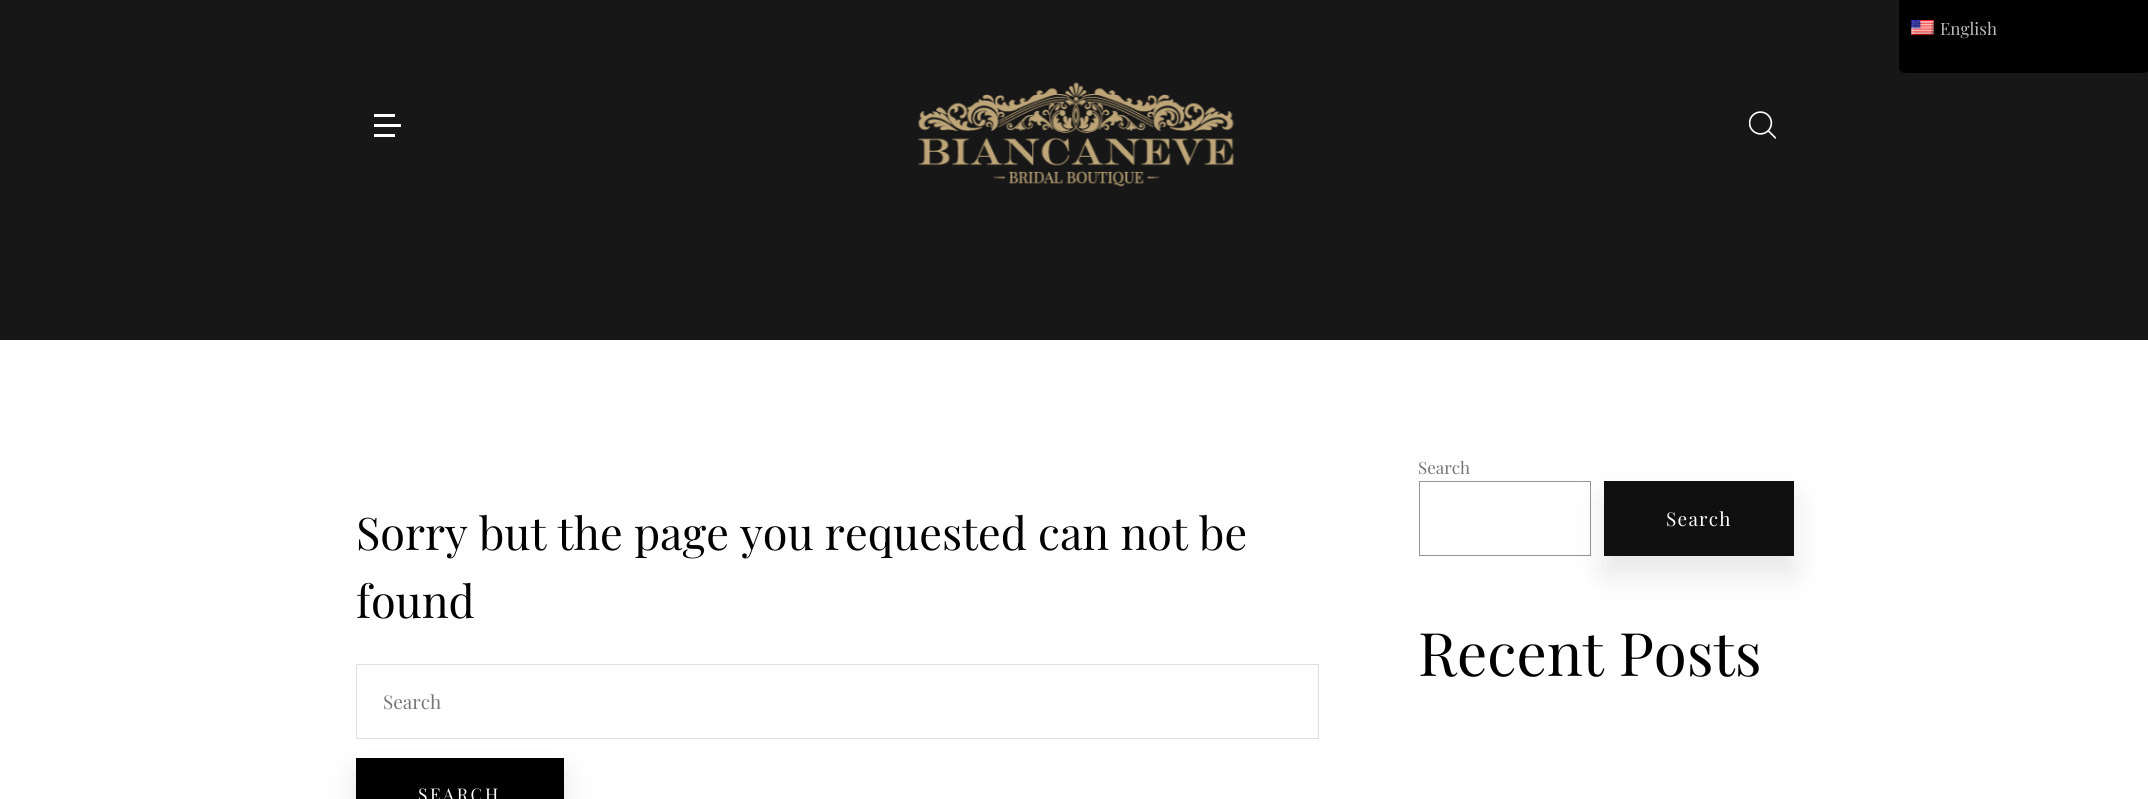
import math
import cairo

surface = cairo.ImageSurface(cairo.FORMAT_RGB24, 2148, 799)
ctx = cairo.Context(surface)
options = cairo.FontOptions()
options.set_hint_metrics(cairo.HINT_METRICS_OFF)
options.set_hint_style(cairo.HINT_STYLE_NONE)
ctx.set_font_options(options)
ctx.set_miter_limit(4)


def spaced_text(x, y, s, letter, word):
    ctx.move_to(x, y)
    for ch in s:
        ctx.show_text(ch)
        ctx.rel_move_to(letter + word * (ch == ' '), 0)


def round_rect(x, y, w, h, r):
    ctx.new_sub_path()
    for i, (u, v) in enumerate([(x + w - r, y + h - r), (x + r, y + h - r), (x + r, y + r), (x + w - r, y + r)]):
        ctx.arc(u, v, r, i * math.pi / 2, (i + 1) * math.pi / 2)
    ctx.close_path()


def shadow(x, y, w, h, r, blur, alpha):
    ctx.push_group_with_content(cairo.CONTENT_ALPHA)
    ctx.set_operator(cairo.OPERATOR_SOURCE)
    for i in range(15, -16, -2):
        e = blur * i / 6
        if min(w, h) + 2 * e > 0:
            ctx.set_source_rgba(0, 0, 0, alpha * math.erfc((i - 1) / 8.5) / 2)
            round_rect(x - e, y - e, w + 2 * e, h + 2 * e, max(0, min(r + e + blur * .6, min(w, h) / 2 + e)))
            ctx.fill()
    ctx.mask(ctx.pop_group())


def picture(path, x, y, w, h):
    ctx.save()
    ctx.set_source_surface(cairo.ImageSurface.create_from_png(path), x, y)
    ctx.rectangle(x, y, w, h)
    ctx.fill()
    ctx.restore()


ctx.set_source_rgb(1, 1, 1)
ctx.paint()
ctx.set_source_rgb(0.09, 0.09, 0.09)
ctx.rectangle(0, 0, 2148, 340)
ctx.fill()
ctx.set_source_rgb(0, 0, 0)
ctx.new_path()
ctx.move_to(1899, 0)
ctx.line_to(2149, 0)
ctx.line_to(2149, 67)
ctx.curve_to(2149, 70.5, 2146.5, 73, 2143, 73)
ctx.line_to(1905, 73)
ctx.curve_to(1901.5, 73, 1899, 70.5, 1899, 67)
ctx.close_path()
ctx.fill()
picture("img1.png", 1911, 20, 23, 16)
ctx.select_font_face("Playfair Display")
ctx.set_font_size(17)
ctx.set_source_rgb(0.741, 0.741, 0.741)
ctx.move_to(1940, 35)
ctx.show_text("English")
ctx.set_source_rgb(1, 1, 1)
ctx.rectangle(374, 114, 21, 3)
ctx.fill()
ctx.rectangle(374, 124, 27, 3)
ctx.fill()
ctx.rectangle(374, 134, 21, 3)
ctx.fill()
picture("img2.png", 918, 82, 317, 105)
picture("img3.png", 1749, 111, 27, 28)
ctx.set_font_size(45)
ctx.set_source_rgb(0, 0, 0)
ctx.move_to(356, 550)
ctx.show_text("Sorry but the page you requested can not be")
ctx.move_to(356, 618)
ctx.show_text("found")
ctx.rectangle(356.5, 664.5, 962, 74)
ctx.set_source_rgb(0.875, 0.875, 0.875)
ctx.set_line_width(1)
ctx.stroke()
ctx.set_font_size(19)
ctx.set_source_rgb(0.459, 0.459, 0.459)
ctx.move_to(383, 709)
ctx.show_text("Search")
ctx.set_source_rgb(0, 0, 0)
shadow(356, 775, 208, 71, 0, 15.5, 0.1)
ctx.set_source_rgb(0, 0, 0)
ctx.rectangle(356, 758, 208, 41)
ctx.fill()
ctx.set_font_size(17.5)
ctx.set_source_rgb(1, 1, 1)
spaced_text(418, 801, "SEARCH", 2.5, 0)
ctx.set_font_size(17)
ctx.set_source_rgb(0.459, 0.459, 0.459)
ctx.move_to(1418, 474)
ctx.show_text("Search")
ctx.rectangle(1419.5, 481.5, 171, 74)
ctx.set_source_rgb(0.58, 0.58, 0.58)
ctx.stroke()
ctx.set_source_rgb(0, 0, 0)
shadow(1604, 499, 190, 75, 0, 15.5, 0.1)
ctx.set_source_rgb(0.063, 0.063, 0.063)
ctx.rectangle(1604, 481, 190, 75)
ctx.fill()
ctx.set_font_size(19)
ctx.set_source_rgb(1, 1, 1)
spaced_text(1666, 526, "Search", 1.25, 0)
ctx.set_font_size(60)
ctx.set_source_rgb(0, 0, 0)
ctx.move_to(1418, 676)
ctx.show_text("Recent Posts")
surface.write_to_png("page.png")
